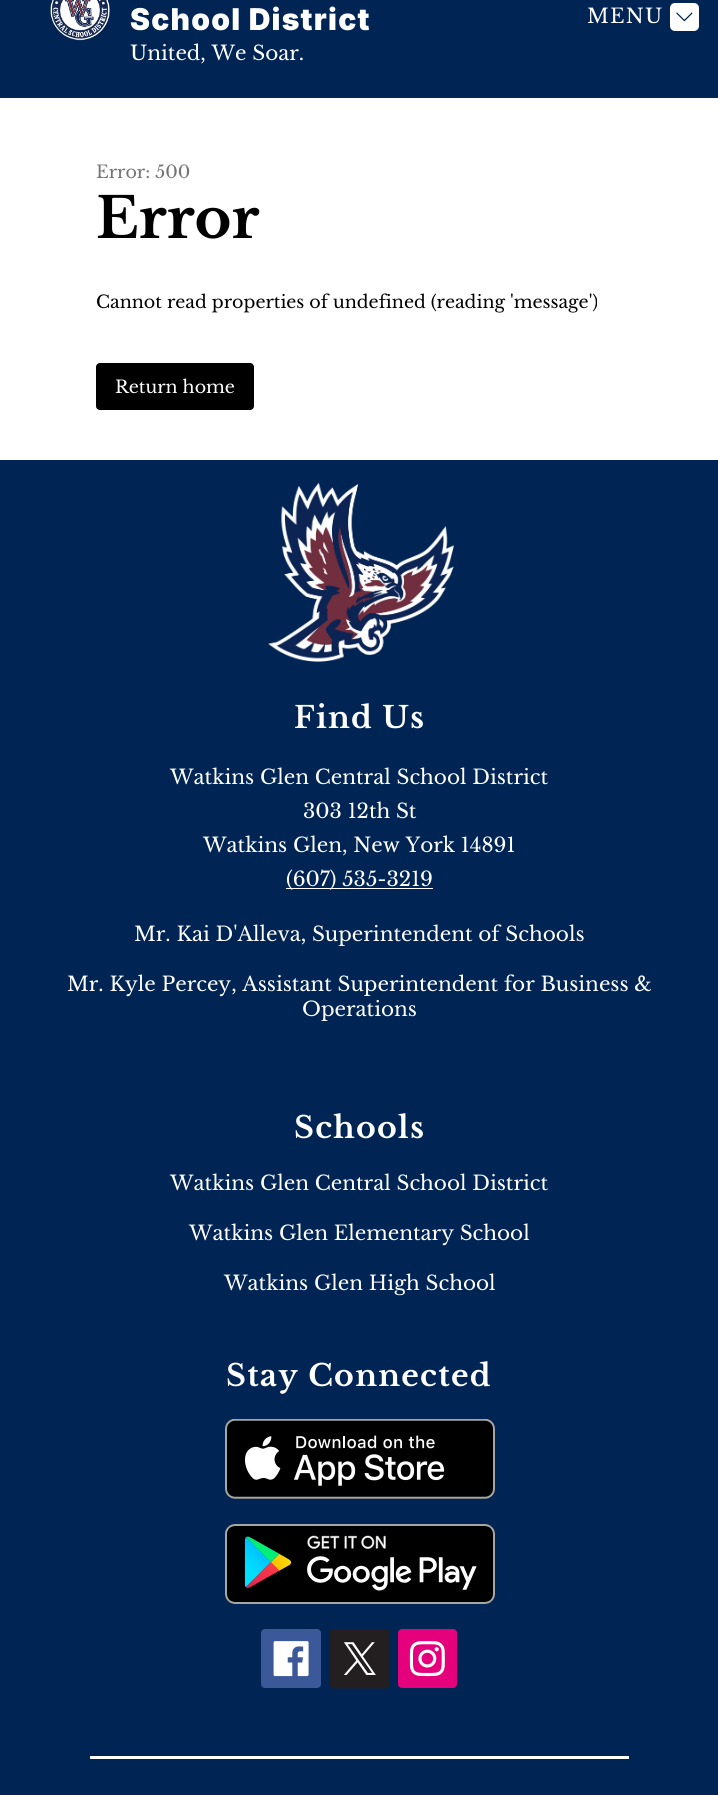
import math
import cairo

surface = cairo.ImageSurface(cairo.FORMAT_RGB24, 718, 1795)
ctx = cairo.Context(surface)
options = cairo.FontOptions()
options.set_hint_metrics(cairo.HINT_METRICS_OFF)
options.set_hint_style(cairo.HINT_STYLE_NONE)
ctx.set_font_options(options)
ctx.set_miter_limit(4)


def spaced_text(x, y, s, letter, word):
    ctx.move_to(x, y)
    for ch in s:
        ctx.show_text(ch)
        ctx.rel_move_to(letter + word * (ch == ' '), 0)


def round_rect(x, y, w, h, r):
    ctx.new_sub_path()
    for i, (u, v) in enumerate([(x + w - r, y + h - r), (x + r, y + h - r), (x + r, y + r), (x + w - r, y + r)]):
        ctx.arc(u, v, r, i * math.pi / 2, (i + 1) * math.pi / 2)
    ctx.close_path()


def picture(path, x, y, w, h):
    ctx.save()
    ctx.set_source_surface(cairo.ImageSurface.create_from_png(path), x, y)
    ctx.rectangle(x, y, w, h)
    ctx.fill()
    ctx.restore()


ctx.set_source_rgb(1, 1, 1)
ctx.paint()
ctx.set_source_rgb(0, 0.145, 0.329)
ctx.rectangle(0, 0, 718, 98)
ctx.fill()
picture("img1.png", 50, 0, 60, 41)
ctx.select_font_face("Inter Black")
ctx.set_font_size(30)
ctx.set_source_rgb(1, 1, 1)
spaced_text(130, 30, "School District", 1.25, 0)
ctx.select_font_face("Libre Baskerville")
ctx.set_font_size(20)
ctx.move_to(130, 60)
ctx.show_text("United, We Soar.")
spaced_text(587, 23, "MENU", 1.25, 0)
picture("img2.png", 670, 3, 29, 28)
ctx.set_font_size(17.5)
ctx.set_source_rgb(0.455, 0.455, 0.455)
ctx.move_to(96, 178)
ctx.show_text("Error: 500")
ctx.select_font_face("Libre Baskerville", cairo.FONT_SLANT_NORMAL, cairo.FONT_WEIGHT_BOLD)
ctx.set_font_size(56)
ctx.set_source_rgb(0, 0, 0)
ctx.move_to(96, 238)
ctx.show_text("Error")
ctx.select_font_face("Libre Baskerville")
ctx.set_font_size(17.5)
ctx.move_to(96, 308)
ctx.show_text("Cannot read properties of undefined (reading 'message')")
round_rect(96, 363, 158, 47, 4)
ctx.fill()
ctx.set_source_rgb(1, 1, 1)
ctx.move_to(115, 393)
ctx.show_text("Return home")
ctx.set_source_rgb(0, 0.145, 0.329)
ctx.rectangle(0, 460, 718, 1335)
ctx.fill()
picture("img3.png", 268, 482, 186, 180)
ctx.select_font_face("Libre Baskerville", cairo.FONT_SLANT_NORMAL, cairo.FONT_WEIGHT_BOLD)
ctx.set_font_size(30)
ctx.set_source_rgb(1, 1, 1)
spaced_text(294, 728, "Find Us", 1.25, 0)
ctx.select_font_face("Libre Baskerville")
ctx.set_font_size(20)
ctx.move_to(170, 784)
ctx.show_text("Watkins Glen Central School District")
ctx.move_to(303, 818)
ctx.show_text("303 12th St")
ctx.move_to(203, 852)
ctx.show_text("Watkins Glen, New York 14891")
ctx.rectangle(286, 888, 147, 1)
ctx.fill()
ctx.move_to(286, 886)
ctx.show_text("(607) 535-3219")
ctx.move_to(134, 941)
ctx.show_text("Mr. Kai D'Alleva, Superintendent of Schools")
ctx.move_to(67, 991)
ctx.show_text("Mr. Kyle Percey, Assistant Superintendent for Business &")
ctx.move_to(302, 1016)
ctx.show_text("Operations")
ctx.select_font_face("Libre Baskerville", cairo.FONT_SLANT_NORMAL, cairo.FONT_WEIGHT_BOLD)
ctx.set_font_size(30)
spaced_text(294, 1138, "Schools", 1.25, 0)
ctx.select_font_face("Libre Baskerville")
ctx.set_font_size(20)
ctx.move_to(170, 1190)
ctx.show_text("Watkins Glen Central School District")
ctx.move_to(189, 1240)
ctx.show_text("Watkins Glen Elementary School")
ctx.move_to(224, 1290)
ctx.show_text("Watkins Glen High School")
ctx.select_font_face("Libre Baskerville", cairo.FONT_SLANT_NORMAL, cairo.FONT_WEIGHT_BOLD)
ctx.set_font_size(30)
spaced_text(226, 1386, "Stay Connected", 1.25, 0)
picture("img4.png", 225, 1419, 270, 80)
picture("img5.png", 225, 1524, 270, 80)
picture("img6.png", 261, 1629, 60, 59)
picture("img7.png", 330, 1629, 59, 60)
picture("img8.png", 398, 1629, 59, 59)
ctx.rectangle(90, 1756, 539, 3)
ctx.fill()
surface.write_to_png("page.png")
